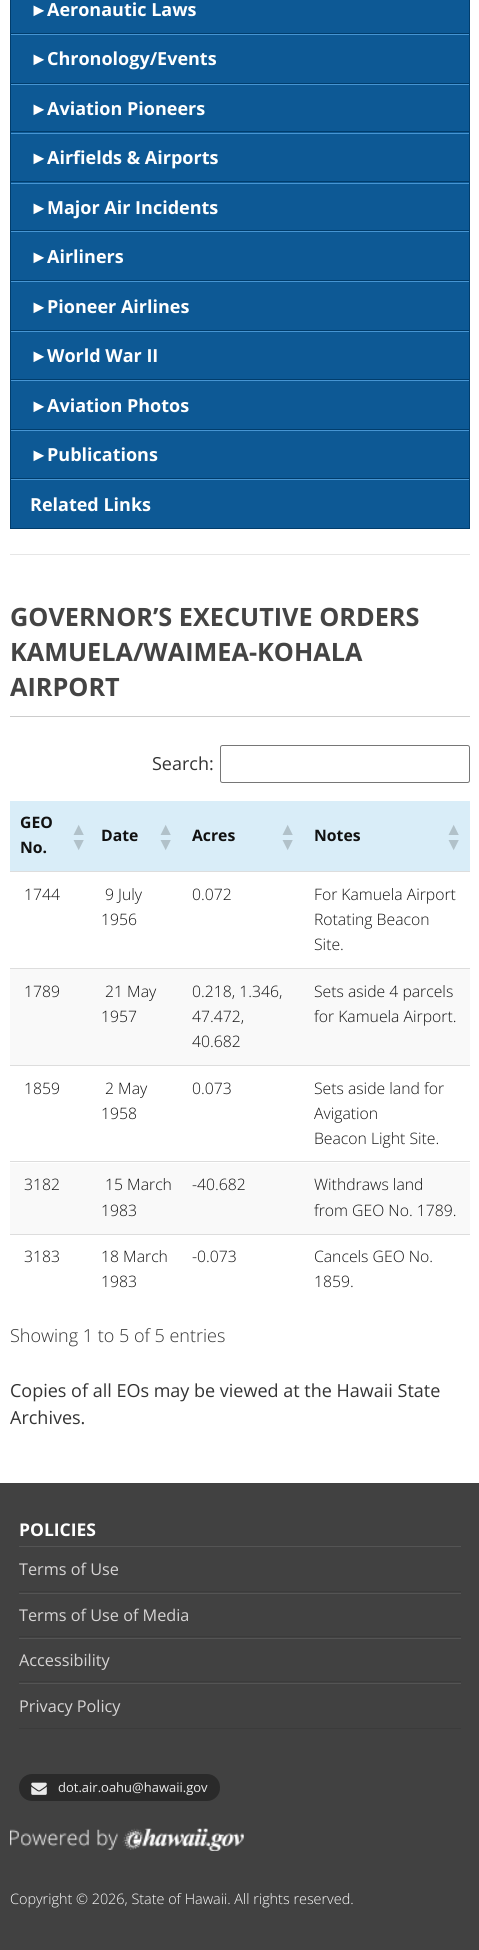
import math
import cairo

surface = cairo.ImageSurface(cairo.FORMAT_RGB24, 479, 1950)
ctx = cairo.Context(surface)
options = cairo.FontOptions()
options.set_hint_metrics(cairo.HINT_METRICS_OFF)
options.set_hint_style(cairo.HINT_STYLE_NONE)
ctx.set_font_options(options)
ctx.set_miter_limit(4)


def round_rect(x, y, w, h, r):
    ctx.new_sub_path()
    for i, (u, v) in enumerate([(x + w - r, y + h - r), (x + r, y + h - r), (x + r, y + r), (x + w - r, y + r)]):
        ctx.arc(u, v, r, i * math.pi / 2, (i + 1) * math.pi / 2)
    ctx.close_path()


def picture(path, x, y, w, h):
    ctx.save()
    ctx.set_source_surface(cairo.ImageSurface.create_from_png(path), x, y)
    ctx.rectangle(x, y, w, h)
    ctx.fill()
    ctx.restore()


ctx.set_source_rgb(1, 1, 1)
ctx.paint()
ctx.set_source_rgb(0.902, 0.902, 0.902)
ctx.rectangle(10, 554, 460, 1)
ctx.fill()
ctx.set_source_rgb(0.004, 0.239, 0.424)
ctx.rectangle(469, 0, 1, 529)
ctx.fill()
ctx.rectangle(10, 0, 1, 529)
ctx.fill()
ctx.set_source_rgb(0.051, 0.349, 0.584)
ctx.rectangle(11, 0, 458, 33)
ctx.fill()
ctx.set_source_rgb(0.004, 0.239, 0.424)
ctx.rectangle(11, 33, 458, 1)
ctx.fill()
ctx.select_font_face("Liberation Sans", cairo.FONT_SLANT_NORMAL, cairo.FONT_WEIGHT_BOLD)
ctx.set_font_size(18)
ctx.set_source_rgb(1, 1, 1)
ctx.move_to(30, 16)
ctx.show_text("►")
ctx.select_font_face("Open Sans", cairo.FONT_SLANT_NORMAL, cairo.FONT_WEIGHT_BOLD)
ctx.move_to(47, 16)
ctx.show_text("Aeronautic Laws")
ctx.set_source_rgb(0.051, 0.349, 0.584)
ctx.rectangle(11, 35, 458, 48)
ctx.fill()
ctx.set_source_rgb(0.275, 0.584, 0.827)
ctx.rectangle(11, 34, 458, 1)
ctx.fill()
ctx.set_source_rgb(0.004, 0.239, 0.424)
ctx.rectangle(11, 83, 458, 1)
ctx.fill()
ctx.select_font_face("Liberation Sans", cairo.FONT_SLANT_NORMAL, cairo.FONT_WEIGHT_BOLD)
ctx.set_source_rgb(1, 1, 1)
ctx.move_to(30, 65)
ctx.show_text("►")
ctx.select_font_face("Open Sans", cairo.FONT_SLANT_NORMAL, cairo.FONT_WEIGHT_BOLD)
ctx.move_to(47, 65)
ctx.show_text("Chronology/Events")
ctx.set_source_rgb(0.051, 0.349, 0.584)
ctx.rectangle(11, 85, 458, 48)
ctx.fill()
ctx.set_source_rgb(0.275, 0.584, 0.827)
ctx.rectangle(11, 84, 458, 1)
ctx.fill()
ctx.set_source_rgb(0.004, 0.239, 0.424)
ctx.rectangle(11, 131, 458, 1)
ctx.fill()
ctx.select_font_face("Liberation Sans", cairo.FONT_SLANT_NORMAL, cairo.FONT_WEIGHT_BOLD)
ctx.set_source_rgb(1, 1, 1)
ctx.move_to(30, 115)
ctx.show_text("►")
ctx.select_font_face("Open Sans", cairo.FONT_SLANT_NORMAL, cairo.FONT_WEIGHT_BOLD)
ctx.move_to(47, 115)
ctx.show_text("Aviation Pioneers")
ctx.set_source_rgb(0.051, 0.349, 0.584)
ctx.rectangle(11, 134, 458, 49)
ctx.fill()
ctx.set_source_rgb(0.275, 0.584, 0.827)
ctx.rectangle(11, 133, 458, 1)
ctx.fill()
ctx.set_source_rgb(0.004, 0.239, 0.424)
ctx.rectangle(11, 181, 458, 1)
ctx.fill()
ctx.select_font_face("Liberation Sans", cairo.FONT_SLANT_NORMAL, cairo.FONT_WEIGHT_BOLD)
ctx.set_source_rgb(1, 1, 1)
ctx.move_to(30, 164)
ctx.show_text("►")
ctx.select_font_face("Open Sans", cairo.FONT_SLANT_NORMAL, cairo.FONT_WEIGHT_BOLD)
ctx.move_to(47, 164)
ctx.show_text("Airfields & Airports")
ctx.set_source_rgb(0.051, 0.349, 0.584)
ctx.rectangle(11, 184, 458, 46)
ctx.fill()
ctx.set_source_rgb(0.275, 0.584, 0.827)
ctx.rectangle(11, 183, 458, 1)
ctx.fill()
ctx.set_source_rgb(0.004, 0.239, 0.424)
ctx.rectangle(11, 230, 458, 1)
ctx.fill()
ctx.select_font_face("Liberation Sans", cairo.FONT_SLANT_NORMAL, cairo.FONT_WEIGHT_BOLD)
ctx.set_source_rgb(1, 1, 1)
ctx.move_to(30, 214)
ctx.show_text("►")
ctx.select_font_face("Open Sans", cairo.FONT_SLANT_NORMAL, cairo.FONT_WEIGHT_BOLD)
ctx.move_to(47, 214)
ctx.show_text("Major Air Incidents")
ctx.set_source_rgb(0.051, 0.349, 0.584)
ctx.rectangle(11, 232, 458, 48)
ctx.fill()
ctx.set_source_rgb(0.275, 0.584, 0.827)
ctx.rectangle(11, 231, 458, 1)
ctx.fill()
ctx.set_source_rgb(0.004, 0.239, 0.424)
ctx.rectangle(11, 280, 458, 1)
ctx.fill()
ctx.select_font_face("Liberation Sans", cairo.FONT_SLANT_NORMAL, cairo.FONT_WEIGHT_BOLD)
ctx.set_source_rgb(1, 1, 1)
ctx.move_to(30, 263)
ctx.show_text("►")
ctx.select_font_face("Open Sans", cairo.FONT_SLANT_NORMAL, cairo.FONT_WEIGHT_BOLD)
ctx.move_to(47, 263)
ctx.show_text("Airliners")
ctx.set_source_rgb(0.051, 0.349, 0.584)
ctx.rectangle(11, 282, 458, 48)
ctx.fill()
ctx.set_source_rgb(0.275, 0.584, 0.827)
ctx.rectangle(11, 281, 458, 1)
ctx.fill()
ctx.set_source_rgb(0.004, 0.239, 0.424)
ctx.rectangle(11, 330, 458, 1)
ctx.fill()
ctx.select_font_face("Liberation Sans", cairo.FONT_SLANT_NORMAL, cairo.FONT_WEIGHT_BOLD)
ctx.set_source_rgb(1, 1, 1)
ctx.move_to(30, 313)
ctx.show_text("►")
ctx.select_font_face("Open Sans", cairo.FONT_SLANT_NORMAL, cairo.FONT_WEIGHT_BOLD)
ctx.move_to(47, 313)
ctx.show_text("Pioneer Airlines")
ctx.set_source_rgb(0.051, 0.349, 0.584)
ctx.rectangle(11, 332, 458, 47)
ctx.fill()
ctx.set_source_rgb(0.275, 0.584, 0.827)
ctx.rectangle(11, 331, 458, 1)
ctx.fill()
ctx.set_source_rgb(0.004, 0.239, 0.424)
ctx.rectangle(11, 379, 458, 1)
ctx.fill()
ctx.select_font_face("Liberation Sans", cairo.FONT_SLANT_NORMAL, cairo.FONT_WEIGHT_BOLD)
ctx.set_source_rgb(1, 1, 1)
ctx.move_to(30, 362)
ctx.show_text("►")
ctx.select_font_face("Open Sans", cairo.FONT_SLANT_NORMAL, cairo.FONT_WEIGHT_BOLD)
ctx.move_to(47, 362)
ctx.show_text("World War II")
ctx.set_source_rgb(0.051, 0.349, 0.584)
ctx.rectangle(11, 381, 458, 48)
ctx.fill()
ctx.set_source_rgb(0.275, 0.584, 0.827)
ctx.rectangle(11, 380, 458, 1)
ctx.fill()
ctx.set_source_rgb(0.004, 0.239, 0.424)
ctx.rectangle(11, 429, 458, 1)
ctx.fill()
ctx.select_font_face("Liberation Sans", cairo.FONT_SLANT_NORMAL, cairo.FONT_WEIGHT_BOLD)
ctx.set_source_rgb(1, 1, 1)
ctx.move_to(30, 412)
ctx.show_text("►")
ctx.select_font_face("Open Sans", cairo.FONT_SLANT_NORMAL, cairo.FONT_WEIGHT_BOLD)
ctx.move_to(47, 412)
ctx.show_text("Aviation Photos")
ctx.set_source_rgb(0.051, 0.349, 0.584)
ctx.rectangle(11, 431, 458, 47)
ctx.fill()
ctx.set_source_rgb(0.275, 0.584, 0.827)
ctx.rectangle(11, 430, 458, 1)
ctx.fill()
ctx.set_source_rgb(0.004, 0.239, 0.424)
ctx.rectangle(11, 478, 458, 1)
ctx.fill()
ctx.select_font_face("Liberation Sans", cairo.FONT_SLANT_NORMAL, cairo.FONT_WEIGHT_BOLD)
ctx.set_source_rgb(1, 1, 1)
ctx.move_to(30, 461)
ctx.show_text("►")
ctx.select_font_face("Open Sans", cairo.FONT_SLANT_NORMAL, cairo.FONT_WEIGHT_BOLD)
ctx.move_to(47, 461)
ctx.show_text("Publications")
ctx.set_source_rgb(0.051, 0.349, 0.584)
ctx.rectangle(11, 480, 458, 48)
ctx.fill()
ctx.set_source_rgb(0.275, 0.584, 0.827)
ctx.rectangle(11, 479, 458, 1)
ctx.fill()
ctx.set_source_rgb(0.004, 0.239, 0.424)
ctx.rectangle(11, 528, 458, 1)
ctx.fill()
ctx.set_source_rgb(1, 1, 1)
ctx.move_to(30, 511)
ctx.show_text("Related Links")
ctx.set_source_rgb(0.8, 0.8, 0.8)
ctx.rectangle(10, 716, 460, 1)
ctx.fill()
ctx.set_font_size(25.25)
ctx.set_source_rgb(0.267, 0.267, 0.267)
ctx.move_to(10, 626)
ctx.show_text("GOVERNOR’S EXECUTIVE ORDERS")
ctx.move_to(10, 661)
ctx.show_text("KAMUELA/WAIMEA-KOHALA")
ctx.move_to(10, 696)
ctx.show_text("AIRPORT")
ctx.select_font_face("Open Sans")
ctx.set_font_size(18)
ctx.set_source_rgb(0.2, 0.2, 0.2)
ctx.move_to(152, 770)
ctx.show_text("Search:")
round_rect(220.5, 745.5, 249, 37, 2)
ctx.set_source_rgb(0.463, 0.463, 0.463)
ctx.set_line_width(1)
ctx.stroke()
ctx.set_source_rgb(0.851, 0.929, 0.969)
ctx.rectangle(10, 801, 460, 70)
ctx.fill()
ctx.select_font_face("Open Sans", cairo.FONT_SLANT_NORMAL, cairo.FONT_WEIGHT_BOLD)
ctx.set_font_size(15.75)
ctx.set_source_rgb(0.067, 0.067, 0.067)
ctx.move_to(20, 828)
ctx.show_text("GEO")
ctx.move_to(20, 853)
ctx.show_text("No.")
ctx.select_font_face("Liberation Sans", cairo.FONT_SLANT_NORMAL, cairo.FONT_WEIGHT_BOLD)
ctx.set_font_size(17.5)
ctx.set_source_rgb(0.694, 0.757, 0.788)
ctx.move_to(70, 835)
ctx.show_text("▲")
ctx.move_to(70, 850)
ctx.show_text("▼")
ctx.select_font_face("Open Sans", cairo.FONT_SLANT_NORMAL, cairo.FONT_WEIGHT_BOLD)
ctx.set_font_size(15.75)
ctx.set_source_rgb(0.067, 0.067, 0.067)
ctx.move_to(101, 841)
ctx.show_text("Date")
ctx.select_font_face("Liberation Sans", cairo.FONT_SLANT_NORMAL, cairo.FONT_WEIGHT_BOLD)
ctx.set_font_size(17.5)
ctx.set_source_rgb(0.694, 0.757, 0.788)
ctx.move_to(157, 835)
ctx.show_text("▲")
ctx.move_to(157, 850)
ctx.show_text("▼")
ctx.select_font_face("Open Sans", cairo.FONT_SLANT_NORMAL, cairo.FONT_WEIGHT_BOLD)
ctx.set_font_size(15.75)
ctx.set_source_rgb(0.067, 0.067, 0.067)
ctx.move_to(192, 841)
ctx.show_text("Acres")
ctx.select_font_face("Liberation Sans", cairo.FONT_SLANT_NORMAL, cairo.FONT_WEIGHT_BOLD)
ctx.set_font_size(17.5)
ctx.set_source_rgb(0.694, 0.757, 0.788)
ctx.move_to(279, 835)
ctx.show_text("▲")
ctx.move_to(279, 850)
ctx.show_text("▼")
ctx.select_font_face("Open Sans", cairo.FONT_SLANT_NORMAL, cairo.FONT_WEIGHT_BOLD)
ctx.set_font_size(15.75)
ctx.set_source_rgb(0.067, 0.067, 0.067)
ctx.move_to(314, 841)
ctx.show_text("Notes")
ctx.select_font_face("Liberation Sans", cairo.FONT_SLANT_NORMAL, cairo.FONT_WEIGHT_BOLD)
ctx.set_font_size(17.5)
ctx.set_source_rgb(0.694, 0.757, 0.788)
ctx.move_to(445, 835)
ctx.show_text("▲")
ctx.move_to(445, 850)
ctx.show_text("▼")
ctx.select_font_face("Open Sans Light")
ctx.set_font_size(15.75)
ctx.set_source_rgb(0.067, 0.067, 0.067)
ctx.move_to(24, 900)
ctx.show_text("1744")
ctx.move_to(105, 900)
ctx.show_text("9 July")
ctx.move_to(101, 925)
ctx.show_text("1956")
ctx.move_to(192, 900)
ctx.show_text("0.072")
ctx.set_source_rgb(0.867, 0.867, 0.867)
ctx.rectangle(10, 871, 460, 1)
ctx.fill()
ctx.set_source_rgb(0.067, 0.067, 0.067)
ctx.move_to(314, 900)
ctx.show_text("For Kamuela Airport")
ctx.move_to(314, 925)
ctx.show_text("Rotating Beacon")
ctx.move_to(314, 950)
ctx.show_text("Site.")
ctx.set_source_rgb(0.976, 0.976, 0.976)
ctx.rectangle(10, 969, 460, 96)
ctx.fill()
ctx.set_source_rgb(0.067, 0.067, 0.067)
ctx.move_to(24, 997)
ctx.show_text("1789")
ctx.move_to(105, 997)
ctx.show_text("21 May")
ctx.move_to(101, 1022)
ctx.show_text("1957")
ctx.move_to(192, 997)
ctx.show_text("0.218, 1.346,")
ctx.move_to(192, 1022)
ctx.show_text("47.472,")
ctx.move_to(192, 1047)
ctx.show_text("40.682")
ctx.set_source_rgb(0.867, 0.867, 0.867)
ctx.rectangle(10, 968, 460, 1)
ctx.fill()
ctx.set_source_rgb(0.067, 0.067, 0.067)
ctx.move_to(314, 997)
ctx.show_text("Sets aside 4 parcels")
ctx.move_to(314, 1022)
ctx.show_text("for Kamuela Airport.")
ctx.move_to(24, 1094)
ctx.show_text("1859")
ctx.move_to(105, 1094)
ctx.show_text("2 May")
ctx.move_to(101, 1119)
ctx.show_text("1958")
ctx.move_to(192, 1094)
ctx.show_text("0.073")
ctx.set_source_rgb(0.867, 0.867, 0.867)
ctx.rectangle(10, 1065, 460, 1)
ctx.fill()
ctx.set_source_rgb(0.067, 0.067, 0.067)
ctx.move_to(314, 1094)
ctx.show_text("Sets aside land for")
ctx.move_to(314, 1119)
ctx.show_text("Avigation")
ctx.move_to(314, 1144)
ctx.show_text("Beacon Light Site.")
ctx.set_source_rgb(0.976, 0.976, 0.976)
ctx.rectangle(10, 1163, 460, 71)
ctx.fill()
ctx.set_source_rgb(0.067, 0.067, 0.067)
ctx.move_to(24, 1190)
ctx.show_text("3182")
ctx.move_to(105, 1190)
ctx.show_text("15 March")
ctx.move_to(101, 1216)
ctx.show_text("1983")
ctx.move_to(192, 1190)
ctx.show_text("-40.682")
ctx.set_source_rgb(0.867, 0.867, 0.867)
ctx.rectangle(10, 1161, 460, 1)
ctx.fill()
ctx.set_source_rgb(0.067, 0.067, 0.067)
ctx.move_to(314, 1190)
ctx.show_text("Withdraws land")
ctx.move_to(314, 1216)
ctx.show_text("from GEO No. 1789.")
ctx.move_to(24, 1262)
ctx.show_text("3183")
ctx.move_to(101, 1262)
ctx.show_text("18 March")
ctx.move_to(101, 1287)
ctx.show_text("1983")
ctx.move_to(192, 1262)
ctx.show_text("-0.073")
ctx.set_source_rgb(0.867, 0.867, 0.867)
ctx.rectangle(10, 1234, 460, 1)
ctx.fill()
ctx.set_source_rgb(0.067, 0.067, 0.067)
ctx.move_to(314, 1262)
ctx.show_text("Cancels GEO No.")
ctx.move_to(314, 1287)
ctx.show_text("1859.")
ctx.set_font_size(18)
ctx.set_source_rgb(0.2, 0.2, 0.2)
ctx.move_to(10, 1342)
ctx.show_text("Showing 1 to 5 of 5 entries")
ctx.select_font_face("Open Sans")
ctx.move_to(10, 1397)
ctx.show_text("Copies of all EOs may be viewed at the Hawaii State")
ctx.move_to(10, 1424)
ctx.show_text("Archives.")
ctx.set_source_rgb(0.255, 0.255, 0.255)
ctx.rectangle(0, 1483, 479, 467)
ctx.fill()
ctx.select_font_face("Open Sans", cairo.FONT_SLANT_NORMAL, cairo.FONT_WEIGHT_BOLD)
ctx.set_font_size(17.5)
ctx.set_source_rgb(1, 1, 1)
ctx.move_to(19, 1536)
ctx.show_text("POLICIES")
ctx.set_source_rgb(0.329, 0.329, 0.329)
ctx.rectangle(19, 1546, 442, 1)
ctx.fill()
ctx.set_source_rgb(0.231, 0.231, 0.231)
ctx.rectangle(19, 1591, 442, 1)
ctx.fill()
ctx.select_font_face("Open Sans")
ctx.set_font_size(16.25)
ctx.set_source_rgb(0.839, 0.831, 0.831)
ctx.move_to(19, 1575)
ctx.show_text("Terms of Use")
ctx.set_source_rgb(0.329, 0.329, 0.329)
ctx.rectangle(19, 1593, 442, 1)
ctx.fill()
ctx.set_source_rgb(0.231, 0.231, 0.231)
ctx.rectangle(19, 1636, 442, 1)
ctx.fill()
ctx.set_source_rgb(0.839, 0.831, 0.831)
ctx.move_to(19, 1621)
ctx.show_text("Terms of Use of Media")
ctx.set_source_rgb(0.329, 0.329, 0.329)
ctx.rectangle(19, 1638, 442, 1)
ctx.fill()
ctx.set_source_rgb(0.231, 0.231, 0.231)
ctx.rectangle(19, 1681, 442, 1)
ctx.fill()
ctx.set_source_rgb(0.839, 0.831, 0.831)
ctx.move_to(19, 1666)
ctx.show_text("Accessibility")
ctx.set_source_rgb(0.329, 0.329, 0.329)
ctx.rectangle(19, 1683, 442, 1)
ctx.fill()
ctx.set_source_rgb(0.231, 0.231, 0.231)
ctx.rectangle(19, 1728, 442, 1)
ctx.fill()
ctx.set_source_rgb(0.839, 0.831, 0.831)
ctx.move_to(19, 1712)
ctx.show_text("Privacy Policy")
ctx.set_source_rgb(0.165, 0.165, 0.165)
round_rect(19, 1774, 201, 27, 13)
ctx.fill()
picture("img1.png", 31, 1782, 16, 13)
ctx.set_font_size(13)
ctx.set_source_rgb(0.925, 0.925, 0.925)
ctx.move_to(58, 1792)
ctx.show_text("dot.air.oahu@hawaii.gov")
picture("img2.png", 10, 1828, 234, 23)
ctx.select_font_face("Open Sans Light")
ctx.set_font_size(14.4)
ctx.set_source_rgb(1, 1, 1)
ctx.move_to(10, 1904)
ctx.show_text("Copyright © 2026, State of Hawaii. All rights reserved.")
surface.write_to_png("page.png")
